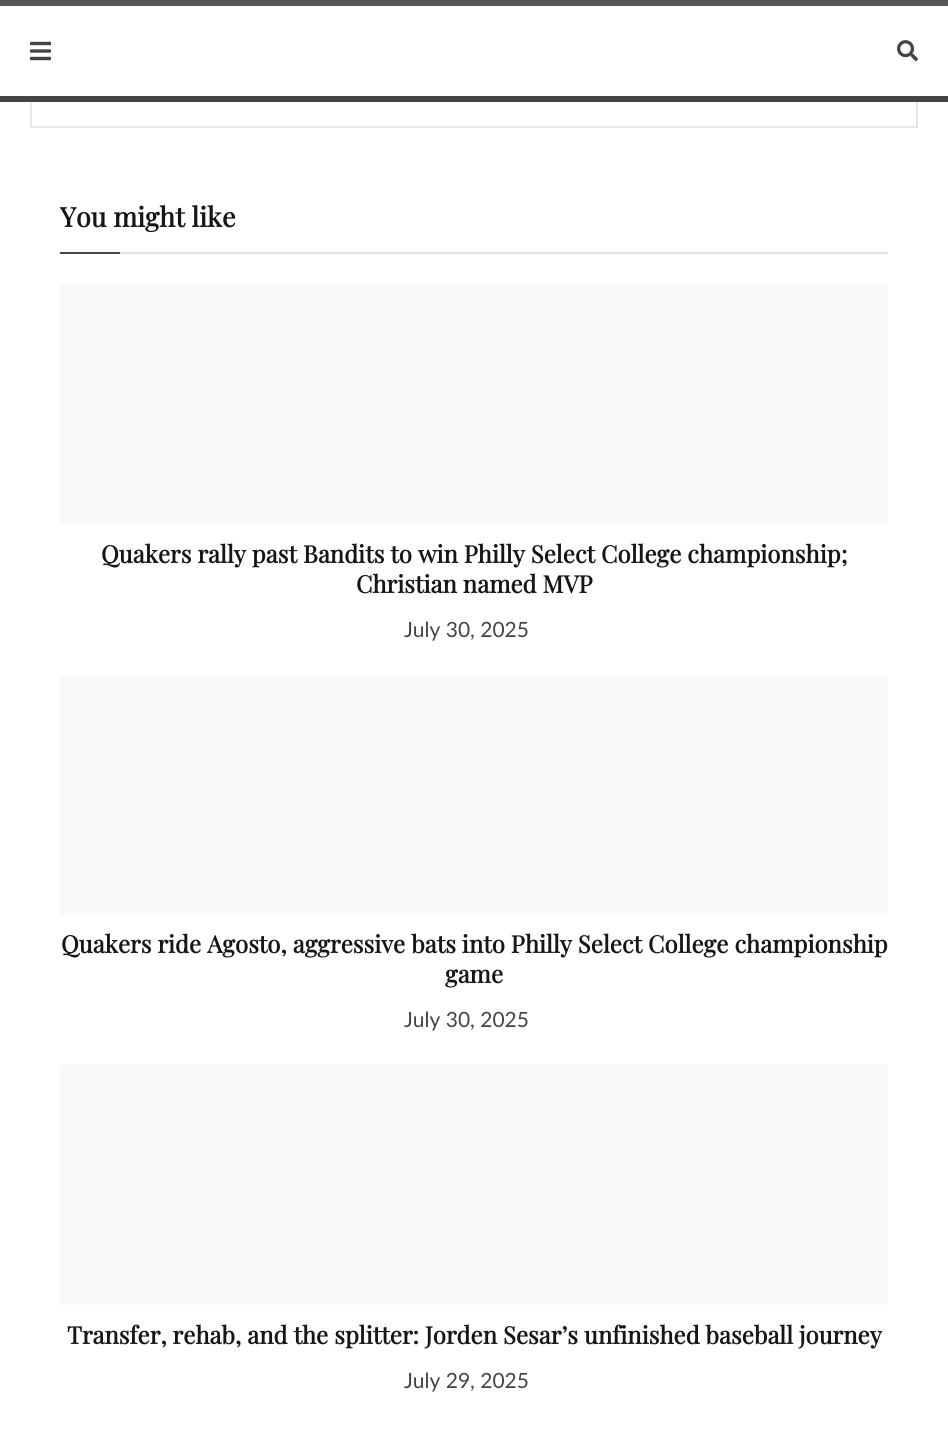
import math
import cairo

surface = cairo.ImageSurface(cairo.FORMAT_RGB24, 948, 1433)
ctx = cairo.Context(surface)
options = cairo.FontOptions()
options.set_hint_metrics(cairo.HINT_METRICS_OFF)
options.set_hint_style(cairo.HINT_STYLE_NONE)
ctx.set_font_options(options)
ctx.set_miter_limit(4)


def picture(path, x, y, w, h):
    ctx.save()
    ctx.set_source_surface(cairo.ImageSurface.create_from_png(path), x, y)
    ctx.rectangle(x, y, w, h)
    ctx.fill()
    ctx.restore()


ctx.set_source_rgb(1, 1, 1)
ctx.paint()
ctx.rectangle(31, -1, 886, 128)
ctx.set_source_rgb(0.902, 0.902, 0.902)
ctx.stroke()
ctx.set_source_rgb(1, 1, 1)
ctx.rectangle(30, 6, 888, 90)
ctx.fill()
ctx.set_source_rgb(0.333, 0.333, 0.333)
ctx.rectangle(0, 0, 948, 6)
ctx.fill()
ctx.set_source_rgb(0.263, 0.267, 0.271)
ctx.rectangle(0, 96, 948, 6)
ctx.fill()
picture("img1.png", 30, 41, 21, 20)
picture("img2.png", 897, 40, 21, 22)
ctx.set_source_rgb(0.878, 0.878, 0.878)
ctx.rectangle(120, 252, 768, 2)
ctx.fill()
ctx.select_font_face("Playfair Display", cairo.FONT_SLANT_NORMAL, cairo.FONT_WEIGHT_BOLD)
ctx.set_font_size(27)
ctx.set_source_rgb(0.086, 0.086, 0.086)
ctx.move_to(60, 227)
ctx.show_text("You might like")
ctx.set_source_rgb(0.263, 0.267, 0.271)
ctx.rectangle(60, 252, 60, 2)
ctx.fill()
ctx.set_source_rgb(0.973, 0.973, 0.973)
ctx.rectangle(60, 284, 828, 240)
ctx.fill()
ctx.set_font_size(24)
ctx.set_source_rgb(0.086, 0.086, 0.086)
ctx.move_to(101, 563)
ctx.show_text("Quakers rally past Bandits to win Philly Select College championship;")
ctx.move_to(356, 593)
ctx.show_text("Christian named MVP")
ctx.select_font_face("Lato")
ctx.set_font_size(21)
ctx.set_source_rgb(0.263, 0.267, 0.271)
ctx.move_to(404, 637)
ctx.show_text("July 30, 2025")
ctx.set_source_rgb(0.973, 0.973, 0.973)
ctx.rectangle(60, 675, 828, 240)
ctx.fill()
ctx.select_font_face("Playfair Display", cairo.FONT_SLANT_NORMAL, cairo.FONT_WEIGHT_BOLD)
ctx.set_font_size(24)
ctx.set_source_rgb(0.086, 0.086, 0.086)
ctx.move_to(61, 953)
ctx.show_text("Quakers ride Agosto, aggressive bats into Philly Select College championship")
ctx.move_to(445, 983)
ctx.show_text("game")
ctx.select_font_face("Lato")
ctx.set_font_size(21)
ctx.set_source_rgb(0.263, 0.267, 0.271)
ctx.move_to(404, 1027)
ctx.show_text("July 30, 2025")
ctx.set_source_rgb(0.973, 0.973, 0.973)
ctx.rectangle(60, 1065, 828, 240)
ctx.fill()
ctx.select_font_face("Playfair Display", cairo.FONT_SLANT_NORMAL, cairo.FONT_WEIGHT_BOLD)
ctx.set_font_size(24)
ctx.set_source_rgb(0.086, 0.086, 0.086)
ctx.move_to(67, 1344)
ctx.show_text("Transfer, rehab, and the splitter: Jorden Sesar’s unfinished baseball journey")
ctx.select_font_face("Lato")
ctx.set_font_size(21)
ctx.set_source_rgb(0.263, 0.267, 0.271)
ctx.move_to(404, 1388)
ctx.show_text("July 29, 2025")
surface.write_to_png("page.png")
